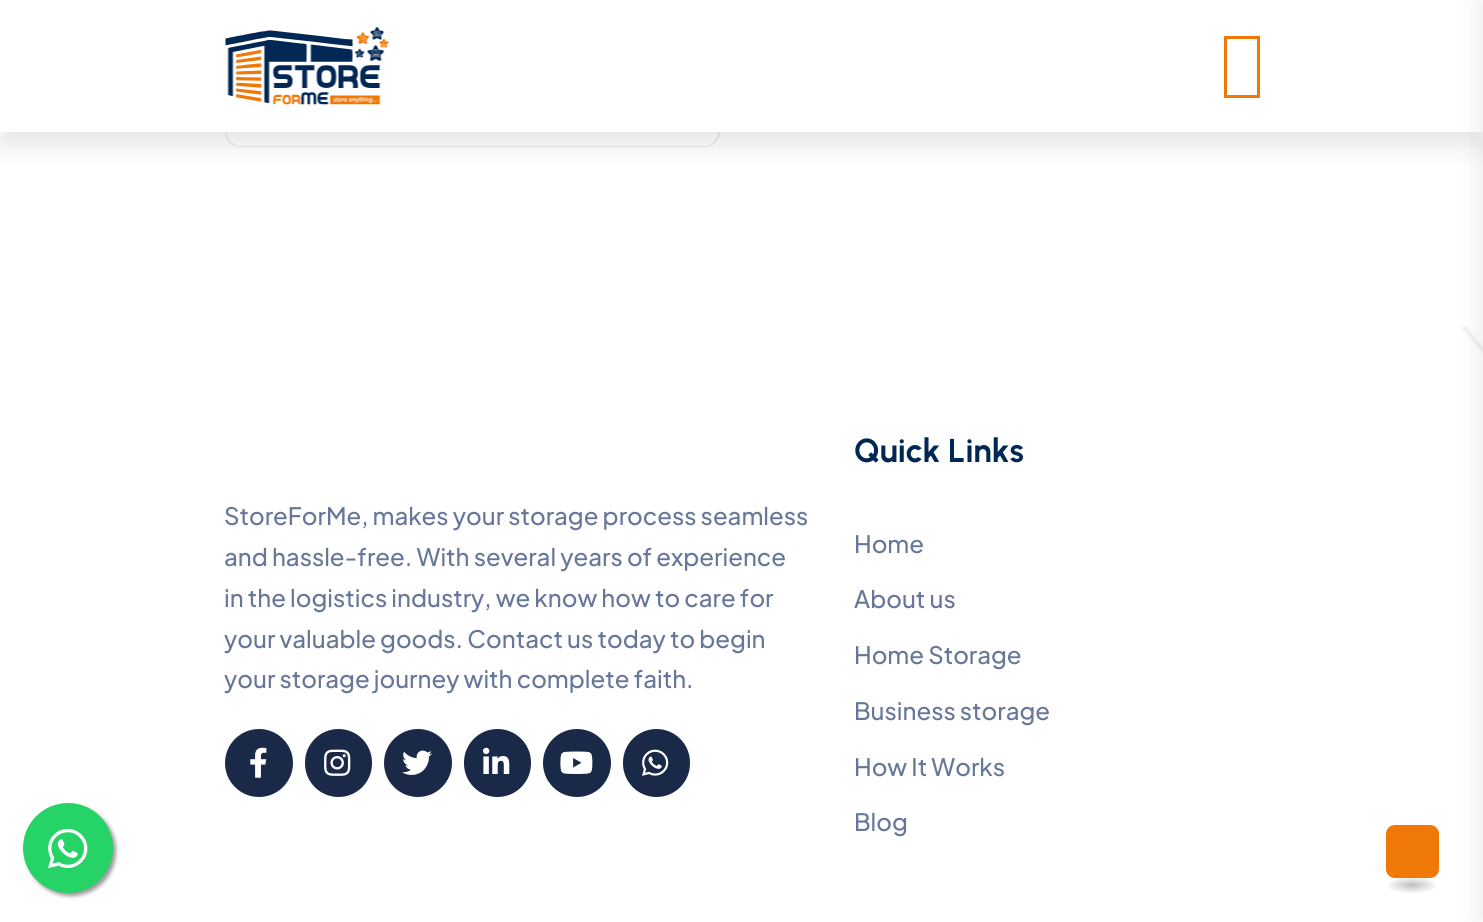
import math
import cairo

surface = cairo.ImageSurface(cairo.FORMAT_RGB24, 1483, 922)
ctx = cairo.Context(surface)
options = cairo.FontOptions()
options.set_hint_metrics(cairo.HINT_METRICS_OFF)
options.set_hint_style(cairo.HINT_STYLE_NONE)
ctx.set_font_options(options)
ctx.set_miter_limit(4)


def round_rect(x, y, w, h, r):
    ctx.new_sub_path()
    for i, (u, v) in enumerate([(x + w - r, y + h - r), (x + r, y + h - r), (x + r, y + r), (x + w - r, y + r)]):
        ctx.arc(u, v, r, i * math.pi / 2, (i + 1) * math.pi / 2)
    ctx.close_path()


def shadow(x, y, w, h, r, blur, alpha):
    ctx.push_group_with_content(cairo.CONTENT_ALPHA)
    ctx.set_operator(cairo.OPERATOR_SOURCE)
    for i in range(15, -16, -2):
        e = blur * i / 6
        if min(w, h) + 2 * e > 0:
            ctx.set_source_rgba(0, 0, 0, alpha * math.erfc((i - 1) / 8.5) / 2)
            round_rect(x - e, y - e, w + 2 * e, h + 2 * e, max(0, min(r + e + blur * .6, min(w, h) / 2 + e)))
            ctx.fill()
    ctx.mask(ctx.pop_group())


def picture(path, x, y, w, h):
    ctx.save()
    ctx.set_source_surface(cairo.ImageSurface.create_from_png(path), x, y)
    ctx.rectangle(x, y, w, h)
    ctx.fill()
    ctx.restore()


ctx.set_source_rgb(1, 1, 1)
ctx.paint()
ctx.set_source_rgb(0.906, 0.906, 0.906)
ctx.set_fill_rule(cairo.FILL_RULE_EVEN_ODD)
ctx.new_path()
ctx.move_to(225, -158)
ctx.line_to(720, -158)
ctx.line_to(720, 132)
ctx.curve_to(720, 140, 713, 147, 705, 147)
ctx.line_to(240, 147)
ctx.curve_to(232, 147, 225, 140, 225, 132)
ctx.close_path()
ctx.move_to(226, -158)
ctx.line_to(718, -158)
ctx.line_to(718, 132)
ctx.curve_to(718, 139, 712, 146, 705, 146)
ctx.line_to(240, 146)
ctx.curve_to(233, 146, 226, 139, 226, 132)
ctx.close_path()
ctx.fill()
ctx.set_source_rgb(0.098, 0.098, 0.098)
shadow(0, 15, 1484, 132, 0, 11, 0.1)
ctx.set_source_rgb(1, 1, 1)
ctx.rectangle(0, 0, 1483, 132)
ctx.fill()
picture("img1.png", 225, 27, 164, 78)
ctx.rectangle(1225.5, 37.5, 33, 59)
ctx.set_source_rgb(0.937, 0.471, 0.024)
ctx.set_line_width(3)
ctx.stroke()
picture("img2.png", 1462, 327, 21, 26)
ctx.set_source_rgb(0, 0, 0)
shadow(1475, 0, 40, 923, 0, 10.5, 0.06)
ctx.select_font_face("Plus Jakarta Sans Medium")
ctx.set_font_size(24)
ctx.set_source_rgb(0.408, 0.467, 0.6)
ctx.move_to(224, 525)
ctx.show_text("StoreForMe, makes your storage process seamless")
ctx.move_to(224, 566)
ctx.show_text("and hassle-free. With several years of experience")
ctx.move_to(224, 607)
ctx.show_text("in the logistics industry, we know how to care for")
ctx.move_to(224, 648)
ctx.show_text("your valuable goods. Contact us today to begin")
ctx.move_to(224, 688)
ctx.show_text("your storage journey with complete faith.")
ctx.set_source_rgb(0.102, 0.161, 0.282)
ctx.new_path()
ctx.arc(259, 763, 34, 0, 2 * math.pi)
ctx.fill()
picture("img3.png", 250, 747, 17, 31)
round_rect(305, 729, 67, 68, 33.5)
ctx.fill()
picture("img4.png", 324, 749, 27, 27)
ctx.arc(418, 763, 34, 0, 2 * math.pi)
ctx.fill()
picture("img5.png", 402, 750, 30, 25)
round_rect(464, 729, 67, 68, 33.5)
ctx.fill()
picture("img6.png", 483, 747, 27, 27)
ctx.arc(577, 763, 34, 0, 2 * math.pi)
ctx.fill()
picture("img7.png", 560, 751, 33, 23)
round_rect(623, 729, 67, 68, 33.5)
ctx.fill()
picture("img8.png", 642, 749, 27, 27)
ctx.select_font_face("Urbanist", cairo.FONT_SLANT_NORMAL, cairo.FONT_WEIGHT_BOLD)
ctx.set_font_size(33)
ctx.set_source_rgb(0.004, 0.153, 0.329)
ctx.move_to(854, 462)
ctx.show_text("Quick Links")
ctx.select_font_face("Plus Jakarta Sans Medium")
ctx.set_font_size(24)
ctx.set_source_rgb(0.408, 0.467, 0.6)
ctx.move_to(854, 553)
ctx.show_text("Home")
ctx.move_to(854, 608)
ctx.show_text("About us")
ctx.move_to(854, 664)
ctx.show_text("Home Storage")
ctx.move_to(854, 720)
ctx.show_text("Business storage")
ctx.move_to(854, 776)
ctx.show_text("How It Works")
ctx.move_to(854, 831)
ctx.show_text("Blog")
ctx.set_source_rgb(0.6, 0.6, 0.6)
shadow(26, 806, 90, 90, 45, 2, 1)
ctx.set_source_rgb(0.145, 0.827, 0.4)
ctx.arc(68, 848, 45, 0, 2 * math.pi)
ctx.fill()
picture("img9.png", 48, 828, 40, 41)
ctx.set_source_rgb(0.937, 0.471, 0.024)
round_rect(1386, 825, 53, 53, 9)
ctx.fill()
gradient = cairo.RadialGradient(0, 0, 0, 0, 0, 1)
gradient.set_matrix(cairo.Matrix(1 / 33, 0, 0, 1 / 11, -1 * 1412 / 33, -1 * 885 / 11))
gradient.add_color_stop_rgba(0, 0.749, 0.749, 0.749, 1)
gradient.add_color_stop_rgba(0.8, 1, 1, 1, 1)
ctx.set_source(gradient)
ctx.rectangle(1389, 878, 47, 15)
ctx.fill()
surface.write_to_png("page.png")
